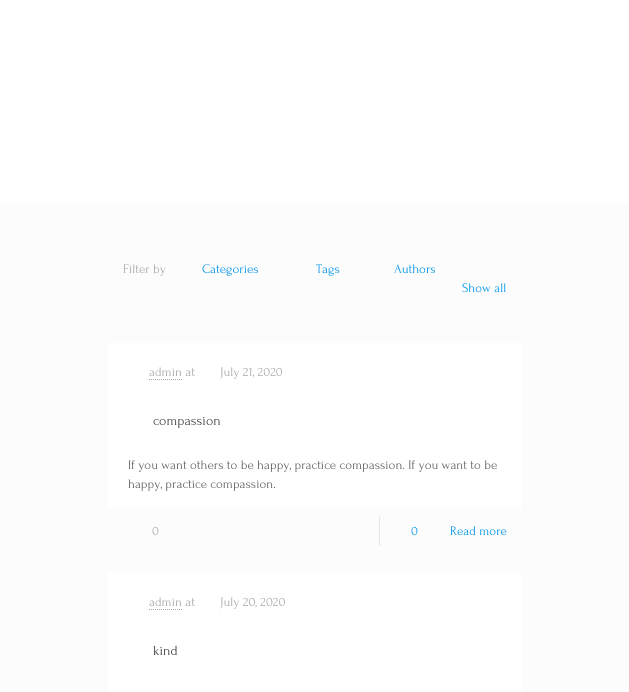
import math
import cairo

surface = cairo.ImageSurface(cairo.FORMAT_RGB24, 629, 692)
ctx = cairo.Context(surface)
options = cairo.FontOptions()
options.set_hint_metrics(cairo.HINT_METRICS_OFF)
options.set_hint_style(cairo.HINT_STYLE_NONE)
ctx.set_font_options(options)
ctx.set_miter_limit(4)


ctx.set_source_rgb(0.988, 0.988, 0.988)
ctx.paint()
ctx.set_source_rgb(1, 1, 1)
ctx.rectangle(0, 0, 629, 205)
ctx.fill()
ctx.select_font_face("Forum")
ctx.set_font_size(13)
ctx.set_source_rgb(0.659, 0.659, 0.659)
ctx.move_to(123, 273)
ctx.show_text("Filter by")
ctx.set_source_rgb(0, 0.584, 0.922)
ctx.move_to(202, 273)
ctx.show_text("Categories")
ctx.move_to(316, 273)
ctx.show_text("Tags")
ctx.move_to(394, 273)
ctx.show_text("Authors")
ctx.move_to(462, 292)
ctx.show_text("Show all")
ctx.set_source_rgb(1, 1, 1)
ctx.rectangle(108, 343, 414, 166)
ctx.fill()
ctx.set_source_rgb(0.659, 0.659, 0.659)
ctx.move_to(149, 376)
ctx.show_text("admin at")
ctx.new_path()
ctx.move_to(149, 379.5)
ctx.line_to(182, 379.5)
ctx.set_line_width(1)
ctx.set_dash([1, 1])
ctx.stroke()
ctx.move_to(220, 376)
ctx.show_text("July 21, 2020")
ctx.set_font_size(14)
ctx.set_source_rgb(0.267, 0.267, 0.267)
ctx.move_to(153, 425)
ctx.show_text("compassion")
ctx.set_font_size(13)
ctx.set_source_rgb(0.384, 0.384, 0.384)
ctx.move_to(128, 469)
ctx.show_text("If you want others to be happy, practice compassion. If you want to be")
ctx.move_to(128, 488)
ctx.show_text("happy, practice compassion.")
ctx.set_source_rgb(0.659, 0.659, 0.659)
ctx.move_to(152, 535)
ctx.show_text("0")
ctx.set_source_rgb(0.902, 0.902, 0.902)
ctx.rectangle(379, 516, 1, 30)
ctx.fill()
ctx.set_source_rgb(0, 0.584, 0.922)
ctx.move_to(411, 535)
ctx.show_text("0")
ctx.move_to(450, 535)
ctx.show_text("Read more")
ctx.set_source_rgb(1, 1, 1)
ctx.rectangle(108, 573, 414, 119)
ctx.fill()
ctx.set_source_rgb(0.659, 0.659, 0.659)
ctx.move_to(149, 606)
ctx.show_text("admin at")
ctx.new_path()
ctx.move_to(149, 609.5)
ctx.line_to(182, 609.5)
ctx.stroke()
ctx.move_to(220, 606)
ctx.show_text("July 20, 2020")
ctx.set_font_size(14)
ctx.set_source_rgb(0.267, 0.267, 0.267)
ctx.move_to(153, 655)
ctx.show_text("kind")
surface.write_to_png("page.png")
